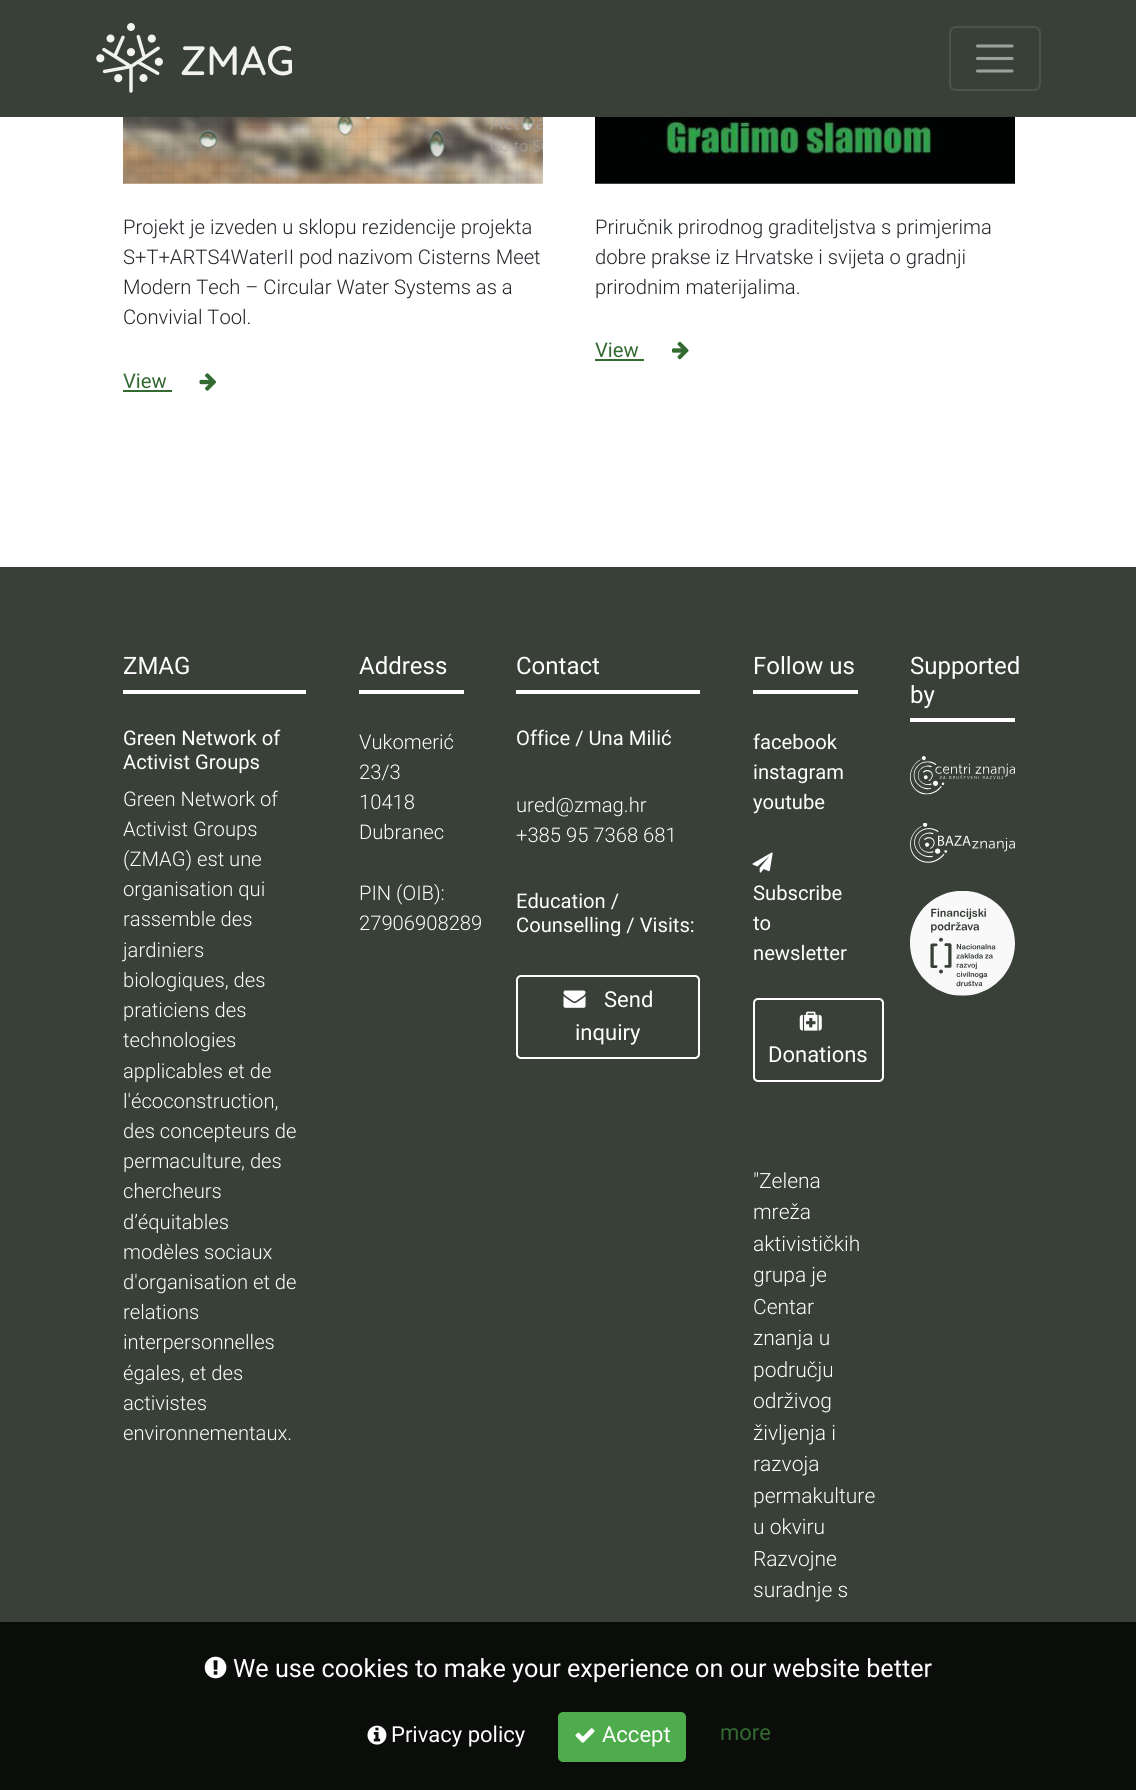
import math
import cairo

surface = cairo.ImageSurface(cairo.FORMAT_RGB24, 1136, 1790)
ctx = cairo.Context(surface)
options = cairo.FontOptions()
options.set_hint_metrics(cairo.HINT_METRICS_OFF)
options.set_hint_style(cairo.HINT_STYLE_NONE)
ctx.set_font_options(options)
ctx.set_miter_limit(4)


def round_rect(x, y, w, h, r):
    ctx.new_sub_path()
    for i, (u, v) in enumerate([(x + w - r, y + h - r), (x + r, y + h - r), (x + r, y + r), (x + w - r, y + r)]):
        ctx.arc(u, v, r, i * math.pi / 2, (i + 1) * math.pi / 2)
    ctx.close_path()


def picture(path, x, y, w, h):
    ctx.save()
    ctx.set_source_surface(cairo.ImageSurface.create_from_png(path), x, y)
    ctx.rectangle(x, y, w, h)
    ctx.fill()
    ctx.restore()


ctx.set_source_rgb(1, 1, 1)
ctx.paint()
ctx.set_source_rgb(0.22, 0.251, 0.22)
ctx.rectangle(0, 0, 1136, 117)
ctx.fill()
picture("img1.png", 96, 23, 196, 70)
round_rect(950, 27, 90, 63, 6)
ctx.set_source_rgb(0.298, 0.325, 0.298)
ctx.stroke()
ctx.new_path()
ctx.move_to(977.5, 46)
ctx.line_to(1012, 46)
ctx.move_to(977.5, 58.5)
ctx.line_to(1012, 58.5)
ctx.move_to(977.5, 71)
ctx.line_to(1012, 71)
ctx.set_source_rgb(0.612, 0.627, 0.612)
ctx.set_line_width(3.1)
ctx.set_line_cap(cairo.LINE_CAP_ROUND)
ctx.stroke()
picture("img2.png", 123, 117, 420, 67)
ctx.select_font_face("Roboto Light")
ctx.set_font_size(20.2)
ctx.set_source_rgb(0.129, 0.145, 0.161)
ctx.move_to(123, 234)
ctx.show_text("Projekt je izveden u sklopu rezidencije projekta")
ctx.move_to(123, 264)
ctx.show_text("S+T+ARTS4WaterII pod nazivom Cisterns Meet")
ctx.move_to(123, 294)
ctx.show_text("Modern Tech – Circular Water Systems as a")
ctx.move_to(123, 324)
ctx.show_text("Convivial Tool.")
ctx.select_font_face("Roboto")
ctx.set_source_rgb(0.2, 0.416, 0.196)
ctx.move_to(123, 388)
ctx.show_text("View")
ctx.rectangle(123, 390, 49, 2)
ctx.fill()
picture("img3.png", 199, 373, 17, 18)
picture("img4.png", 595, 117, 420, 67)
ctx.select_font_face("Roboto Light")
ctx.set_source_rgb(0.129, 0.145, 0.161)
ctx.move_to(595, 234)
ctx.show_text("Priručnik prirodnog graditeljstva s primjerima")
ctx.move_to(595, 264)
ctx.show_text("dobre prakse iz Hrvatske i svijeta o gradnji")
ctx.move_to(595, 294)
ctx.show_text("prirodnim materijalima.")
ctx.select_font_face("Roboto")
ctx.set_source_rgb(0.2, 0.416, 0.196)
ctx.move_to(595, 357)
ctx.show_text("View")
ctx.rectangle(595, 359, 49, 2)
ctx.fill()
picture("img5.png", 672, 341, 17, 19)
ctx.set_source_rgb(0.22, 0.251, 0.22)
ctx.rectangle(0, 567, 1136, 1223)
ctx.fill()
ctx.set_source_rgb(1, 1, 1)
ctx.rectangle(123, 690, 183, 4)
ctx.fill()
ctx.set_font_size(24)
ctx.move_to(123, 674)
ctx.show_text("ZMAG")
ctx.set_font_size(20.2)
ctx.move_to(123, 745)
ctx.show_text("Green Network of")
ctx.move_to(123, 769)
ctx.show_text("Activist Groups")
ctx.select_font_face("Roboto Light")
ctx.move_to(123, 806)
ctx.show_text("Green Network of")
ctx.move_to(123, 836)
ctx.show_text("Activist Groups")
ctx.move_to(123, 866)
ctx.show_text("(ZMAG) est une")
ctx.move_to(123, 896)
ctx.show_text("organisation qui")
ctx.move_to(123, 926)
ctx.show_text("rassemble des")
ctx.move_to(123, 957)
ctx.show_text("jardiniers")
ctx.move_to(123, 987)
ctx.show_text("biologiques, des")
ctx.move_to(123, 1017)
ctx.show_text("praticiens des")
ctx.move_to(123, 1047)
ctx.show_text("technologies")
ctx.move_to(123, 1078)
ctx.show_text("applicables et de")
ctx.move_to(123, 1108)
ctx.show_text("l'écoconstruction,")
ctx.move_to(123, 1138)
ctx.show_text("des concepteurs de")
ctx.move_to(123, 1168)
ctx.show_text("permaculture, des")
ctx.move_to(123, 1198)
ctx.show_text("chercheurs")
ctx.move_to(123, 1229)
ctx.show_text("d’équitables")
ctx.move_to(123, 1259)
ctx.show_text("modèles sociaux")
ctx.move_to(123, 1289)
ctx.show_text("d'organisation et de")
ctx.move_to(123, 1319)
ctx.show_text("relations")
ctx.move_to(123, 1349)
ctx.show_text("interpersonnelles")
ctx.move_to(123, 1380)
ctx.show_text("égales, et des")
ctx.move_to(123, 1410)
ctx.show_text("activistes")
ctx.move_to(123, 1440)
ctx.show_text("environnementaux.")
ctx.rectangle(359, 690, 105, 4)
ctx.fill()
ctx.select_font_face("Roboto")
ctx.set_font_size(24)
ctx.move_to(359, 674)
ctx.show_text("Address")
ctx.select_font_face("Roboto Light")
ctx.set_font_size(20.2)
ctx.move_to(359, 749)
ctx.show_text("Vukomerić")
ctx.move_to(359, 779)
ctx.show_text("23/3")
ctx.move_to(359, 809)
ctx.show_text("10418")
ctx.move_to(359, 839)
ctx.show_text("Dubranec")
ctx.move_to(359, 900)
ctx.show_text("PIN (OIB):")
ctx.move_to(359, 930)
ctx.show_text("27906908289")
ctx.rectangle(516, 690, 184, 4)
ctx.fill()
ctx.select_font_face("Roboto")
ctx.set_font_size(24)
ctx.move_to(516, 674)
ctx.show_text("Contact")
ctx.set_font_size(20.2)
ctx.move_to(516, 745)
ctx.show_text("Office / Una Milić")
ctx.select_font_face("Roboto Light")
ctx.move_to(516, 812)
ctx.show_text("ured@zmag.hr")
ctx.move_to(516, 842)
ctx.show_text("+385 95 7368 681")
ctx.select_font_face("Roboto")
ctx.move_to(516, 908)
ctx.show_text("Education /")
ctx.move_to(516, 932)
ctx.show_text("Counselling / Visits:")
round_rect(517, 976, 182, 82, 4)
ctx.set_line_width(2)
ctx.set_line_cap(cairo.LINE_CAP_BUTT)
ctx.stroke()
picture("img6.png", 563, 990, 23, 18)
ctx.set_font_size(22)
ctx.move_to(604, 1007)
ctx.show_text("Send")
ctx.move_to(575, 1040)
ctx.show_text("inquiry")
ctx.rectangle(753, 690, 105, 4)
ctx.fill()
ctx.set_font_size(24)
ctx.move_to(753, 674)
ctx.show_text("Follow us")
ctx.set_font_size(20.2)
ctx.move_to(753, 749)
ctx.show_text("facebook")
ctx.move_to(753, 779)
ctx.show_text("instagram")
ctx.move_to(753, 809)
ctx.show_text("youtube")
picture("img7.png", 752, 852, 21, 21)
ctx.move_to(753, 900)
ctx.show_text("Subscribe")
ctx.move_to(753, 930)
ctx.show_text("to")
ctx.move_to(753, 960)
ctx.show_text("newsletter")
round_rect(754, 999, 129, 82, 4)
ctx.stroke()
picture("img8.png", 799, 1011, 23, 20)
ctx.set_font_size(22)
ctx.move_to(768, 1062)
ctx.show_text("Donations")
ctx.select_font_face("Roboto Light")
ctx.set_font_size(21)
ctx.move_to(753, 1188)
ctx.show_text("\"Zelena")
ctx.move_to(753, 1219)
ctx.show_text("mreža")
ctx.move_to(753, 1251)
ctx.show_text("aktivističkih")
ctx.move_to(753, 1282)
ctx.show_text("grupa je")
ctx.move_to(753, 1314)
ctx.show_text("Centar")
ctx.move_to(753, 1345)
ctx.show_text("znanja u")
ctx.move_to(753, 1377)
ctx.show_text("području")
ctx.move_to(753, 1408)
ctx.show_text("održivog")
ctx.move_to(753, 1440)
ctx.show_text("življenja i")
ctx.move_to(753, 1471)
ctx.show_text("razvoja")
ctx.move_to(753, 1503)
ctx.show_text("permakulture")
ctx.move_to(753, 1534)
ctx.show_text("u okviru")
ctx.move_to(753, 1566)
ctx.show_text("Razvojne")
ctx.move_to(753, 1597)
ctx.show_text("suradnje s")
ctx.rectangle(910, 718, 105, 4)
ctx.fill()
ctx.select_font_face("Roboto")
ctx.set_font_size(24)
ctx.move_to(910, 674)
ctx.show_text("Supported")
ctx.move_to(910, 703)
ctx.show_text("by")
picture("img9.png", 910, 756, 105, 39)
picture("img10.png", 910, 823, 105, 40)
picture("img11.png", 910, 891, 105, 105)
ctx.set_source_rgba(0, 0, 0, 0.8)
ctx.rectangle(0, 1622, 1136, 168)
ctx.fill()
picture("img12.png", 204, 1656, 23, 23)
ctx.set_font_size(25.2)
ctx.set_source_rgb(1, 1, 1)
ctx.move_to(233, 1677)
ctx.show_text("We use cookies to make your experience on our website better")
picture("img13.png", 367, 1725, 20, 20)
ctx.set_font_size(22)
ctx.move_to(391, 1742)
ctx.show_text("Privacy policy")
ctx.set_source_rgb(0.306, 0.675, 0.298)
round_rect(559, 1713, 126, 48, 4)
ctx.fill_preserve()
ctx.stroke()
picture("img14.png", 575, 1728, 20, 15)
ctx.set_source_rgb(1, 1, 1)
ctx.move_to(602, 1742)
ctx.show_text("Accept")
ctx.set_source_rgb(0.2, 0.416, 0.196)
ctx.move_to(720, 1740)
ctx.show_text("more")
surface.write_to_png("page.png")
